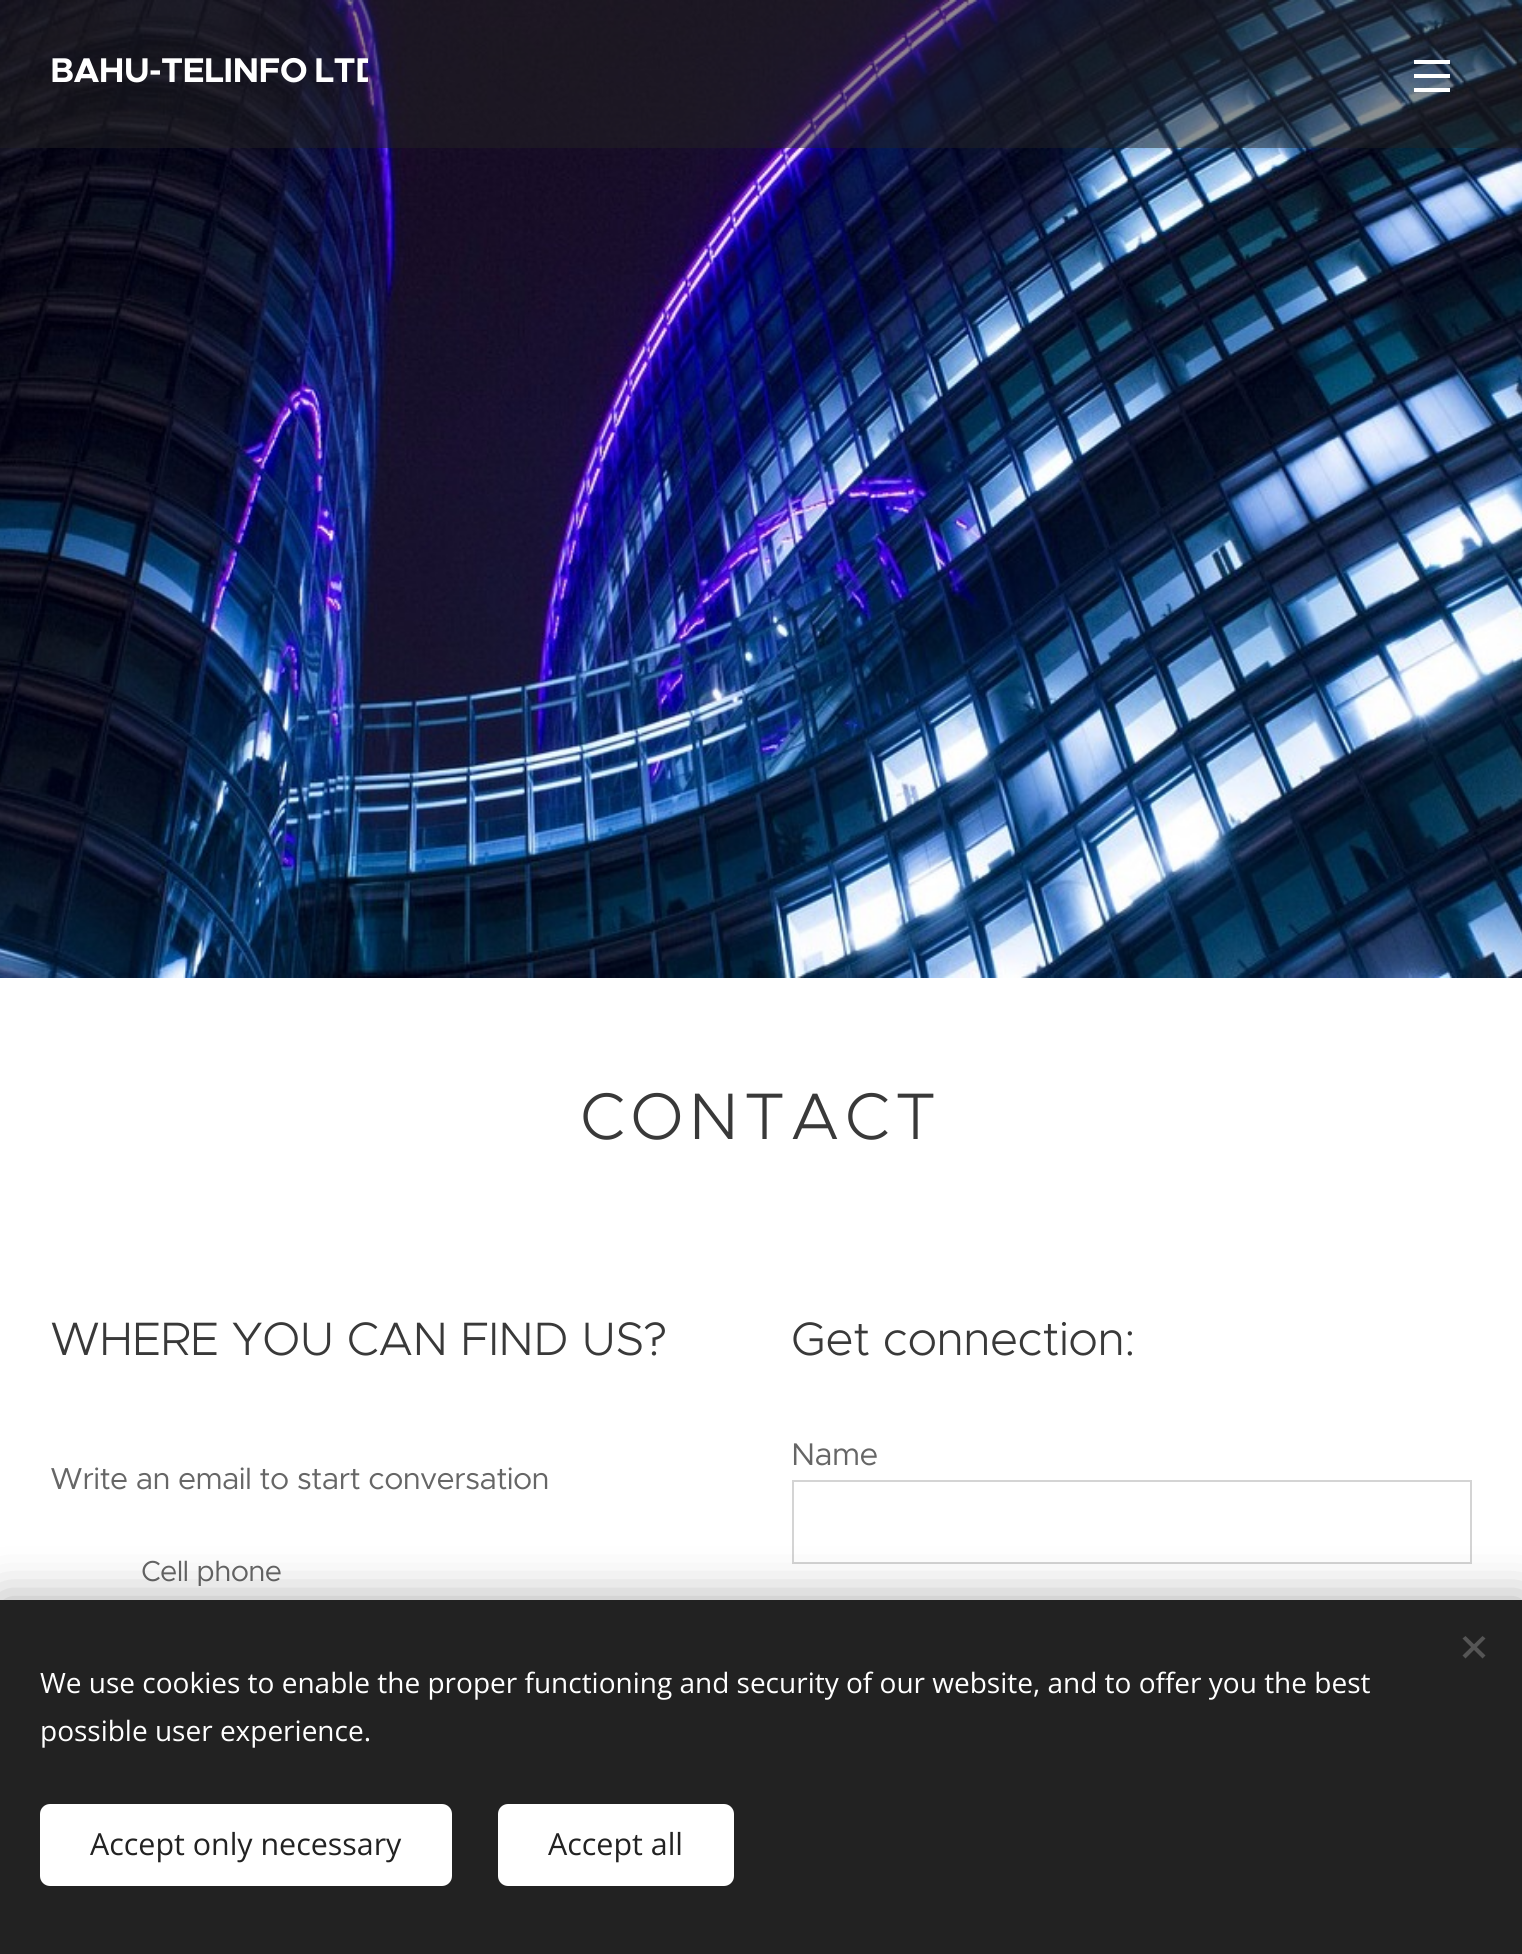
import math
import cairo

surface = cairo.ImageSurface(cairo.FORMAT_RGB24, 1522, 1954)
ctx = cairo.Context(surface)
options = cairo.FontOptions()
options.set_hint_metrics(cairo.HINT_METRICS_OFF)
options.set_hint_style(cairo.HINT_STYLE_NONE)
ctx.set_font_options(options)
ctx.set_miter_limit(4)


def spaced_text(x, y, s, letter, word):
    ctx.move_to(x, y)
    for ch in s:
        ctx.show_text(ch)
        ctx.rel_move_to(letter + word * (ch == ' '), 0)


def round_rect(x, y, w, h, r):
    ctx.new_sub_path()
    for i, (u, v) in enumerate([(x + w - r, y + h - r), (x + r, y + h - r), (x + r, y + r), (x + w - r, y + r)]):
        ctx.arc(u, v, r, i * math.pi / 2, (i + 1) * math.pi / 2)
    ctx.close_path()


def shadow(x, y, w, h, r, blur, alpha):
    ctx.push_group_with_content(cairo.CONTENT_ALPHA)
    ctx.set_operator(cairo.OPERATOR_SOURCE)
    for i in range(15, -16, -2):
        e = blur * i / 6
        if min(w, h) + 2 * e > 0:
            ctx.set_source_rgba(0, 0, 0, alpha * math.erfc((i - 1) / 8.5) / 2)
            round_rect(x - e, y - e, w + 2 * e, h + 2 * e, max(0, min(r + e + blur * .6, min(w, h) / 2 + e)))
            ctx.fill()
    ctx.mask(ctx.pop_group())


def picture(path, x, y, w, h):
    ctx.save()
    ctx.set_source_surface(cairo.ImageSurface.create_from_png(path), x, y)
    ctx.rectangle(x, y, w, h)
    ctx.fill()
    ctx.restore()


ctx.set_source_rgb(1, 1, 1)
ctx.paint()
picture("img1.png", 0, 0, 1522, 978)
ctx.set_source_rgba(0.133, 0.133, 0.133, 0.5)
ctx.rectangle(0, 0, 1522, 148)
ctx.fill()
ctx.save()
ctx.rectangle(42, 46, 326, 56)
ctx.clip()
ctx.select_font_face("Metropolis", cairo.FONT_SLANT_NORMAL, cairo.FONT_WEIGHT_BOLD)
ctx.set_font_size(34.5)
ctx.set_source_rgb(1, 1, 1)
spaced_text(50, 82, "BAHU-TELINFO LTD", -0.65, -2)
ctx.restore()
ctx.set_source_rgb(1, 1, 1)
ctx.rectangle(1414, 74, 36, 4)
ctx.fill()
ctx.rectangle(1414, 60, 36, 4)
ctx.fill()
ctx.rectangle(1414, 88, 36, 4)
ctx.fill()
ctx.select_font_face("Metropolis Light")
ctx.set_font_size(66)
ctx.set_source_rgb(0.224, 0.224, 0.224)
spaced_text(580, 1139, "CONTACT", 5.25, 0)
ctx.set_font_size(47)
spaced_text(50, 1355, "WHERE YOU CAN FIND US?", -0.5, 0)
ctx.select_font_face("Metropolis")
ctx.set_font_size(30.4)
ctx.set_source_rgb(0.4, 0.4, 0.4)
spaced_text(50, 1489, "Write an email to start conversation", -0.65, 0)
ctx.set_font_size(29)
spaced_text(141, 1581, "Cell phone", -0.65, 0)
ctx.select_font_face("Metropolis Light")
ctx.set_font_size(47)
ctx.set_source_rgb(0.224, 0.224, 0.224)
spaced_text(791, 1355, "Get connection:", -0.5, 0)
ctx.select_font_face("Metropolis")
ctx.set_font_size(31.5)
ctx.set_source_rgb(0.4, 0.4, 0.4)
spaced_text(791, 1465, "Name", -0.65, 0)
ctx.rectangle(793, 1481, 678, 82)
ctx.set_source_rgb(0.831, 0.831, 0.831)
ctx.stroke()
ctx.set_source_rgb(0, 0, 0)
shadow(0, 1600, 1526, 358, 0, 25, 0.33)
ctx.set_source_rgb(0.133, 0.133, 0.133)
ctx.rectangle(0, 1600, 1522, 354)
ctx.fill()
ctx.set_source_rgb(0.333, 0.333, 0.333)
ctx.new_path()
ctx.move_to(1462.5, 1655.5)
ctx.line_to(1482.5, 1636)
ctx.line_to(1485.5, 1638.5)
ctx.line_to(1465.5, 1658.5)
ctx.close_path()
ctx.fill()
ctx.new_path()
ctx.move_to(1465.5, 1636)
ctx.line_to(1485.5, 1655.5)
ctx.line_to(1482.5, 1658.5)
ctx.line_to(1462.5, 1638.5)
ctx.close_path()
ctx.fill()
ctx.select_font_face("Open Sans")
ctx.set_font_size(28)
ctx.set_source_rgb(1, 1, 1)
ctx.move_to(40, 1693)
ctx.show_text("We use cookies to enable the proper functioning and security of our website, and to offer you the best")
ctx.move_to(40, 1741)
ctx.show_text("possible user experience.")
round_rect(40, 1804, 412, 82, 10)
ctx.fill()
ctx.set_font_size(30.4)
ctx.set_source_rgb(0.133, 0.133, 0.133)
ctx.move_to(90, 1855)
ctx.show_text("Accept only necessary")
ctx.set_source_rgb(1, 1, 1)
round_rect(498, 1804, 236, 82, 10)
ctx.fill()
ctx.set_source_rgb(0.133, 0.133, 0.133)
ctx.move_to(548, 1855)
ctx.show_text("Accept all")
surface.write_to_png("page.png")
